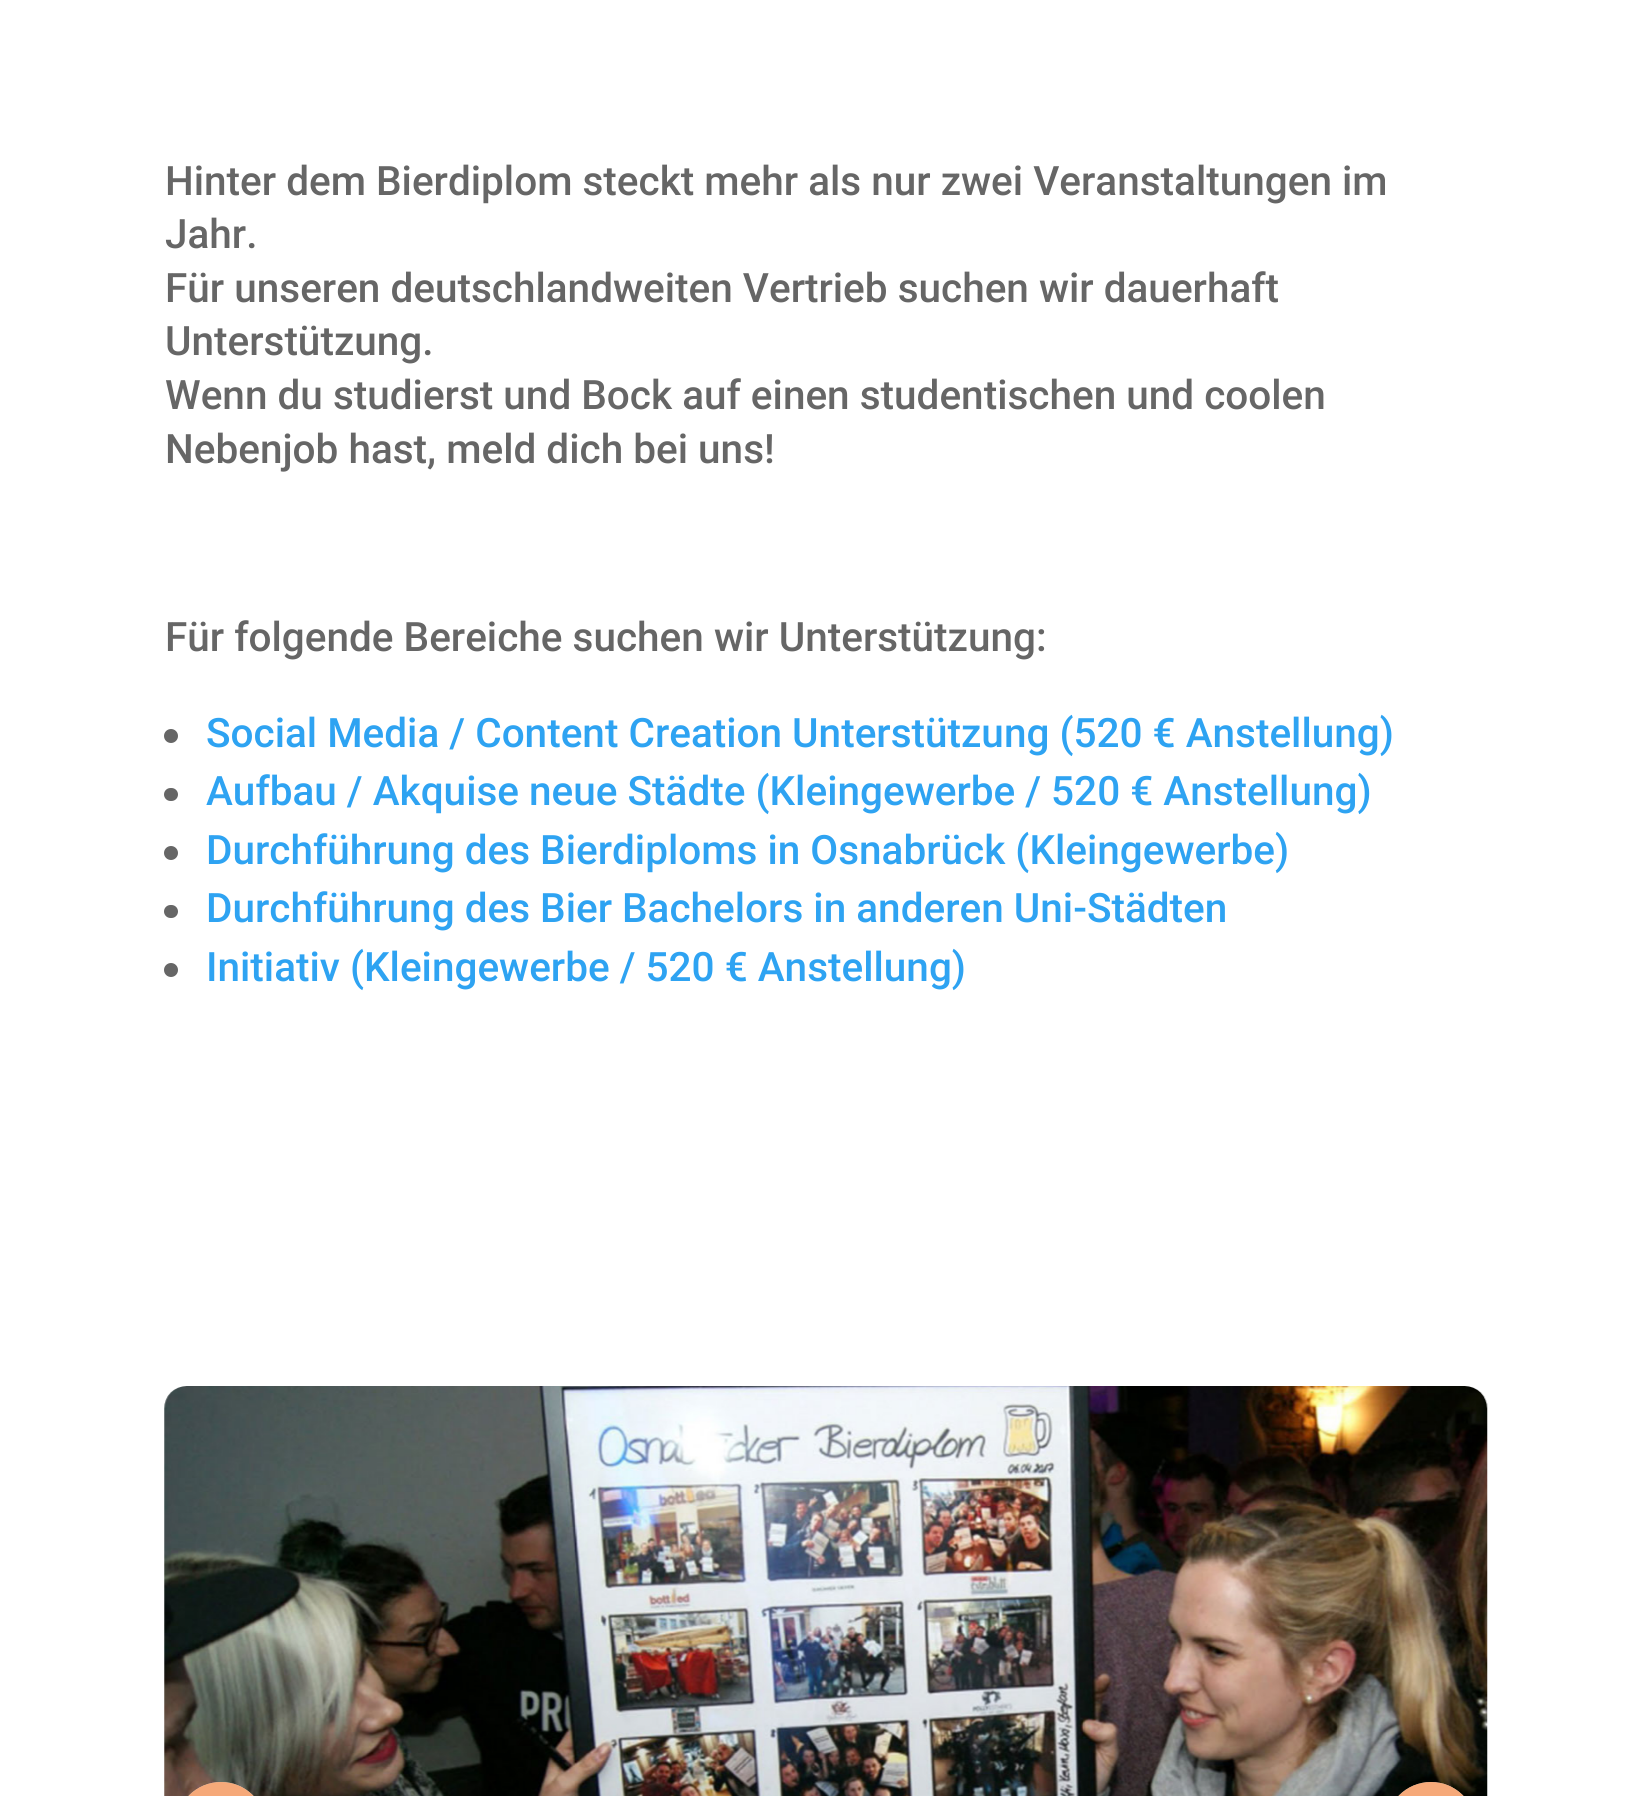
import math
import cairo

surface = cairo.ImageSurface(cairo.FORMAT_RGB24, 1650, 1796)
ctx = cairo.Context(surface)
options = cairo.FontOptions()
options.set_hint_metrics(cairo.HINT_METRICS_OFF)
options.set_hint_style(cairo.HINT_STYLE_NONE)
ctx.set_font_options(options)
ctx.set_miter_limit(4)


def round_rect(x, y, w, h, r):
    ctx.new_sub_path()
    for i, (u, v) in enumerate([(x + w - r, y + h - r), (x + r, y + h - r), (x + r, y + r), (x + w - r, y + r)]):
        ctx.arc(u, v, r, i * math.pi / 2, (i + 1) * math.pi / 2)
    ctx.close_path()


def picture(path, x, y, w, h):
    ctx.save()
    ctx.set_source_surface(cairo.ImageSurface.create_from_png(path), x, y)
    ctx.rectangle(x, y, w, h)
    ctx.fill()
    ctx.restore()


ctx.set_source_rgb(1, 1, 1)
ctx.paint()
ctx.select_font_face("Roboto Medium")
ctx.set_font_size(40.5)
ctx.set_source_rgb(0.4, 0.4, 0.4)
ctx.move_to(165, 195)
ctx.show_text("Hinter dem Bierdiplom steckt mehr als nur zwei Veranstaltungen im")
ctx.move_to(165, 248)
ctx.show_text("Jahr.")
ctx.move_to(165, 302)
ctx.show_text("Für unseren deutschlandweiten Vertrieb suchen wir dauerhaft")
ctx.move_to(165, 355)
ctx.show_text("Unterstützung.")
ctx.move_to(165, 409)
ctx.show_text("Wenn du studierst und Bock auf einen studentischen und coolen")
ctx.move_to(165, 463)
ctx.show_text("Nebenjob hast, meld dich bei uns!")
ctx.move_to(165, 651)
ctx.show_text("Für folgende Bereiche suchen wir Unterstützung:")
ctx.new_path()
ctx.arc(171, 736, 7, 0, 2 * math.pi)
ctx.fill()
ctx.set_source_rgb(0.18, 0.639, 0.949)
ctx.move_to(206, 747)
ctx.show_text("Social Media / Content Creation Unterstützung (520 € Anstellung)")
ctx.set_source_rgb(0.4, 0.4, 0.4)
round_rect(164, 788, 14, 13, 6.5)
ctx.fill()
ctx.set_source_rgb(0.18, 0.639, 0.949)
ctx.move_to(206, 805)
ctx.show_text("Aufbau / Akquise neue Städte (Kleingewerbe / 520 € Anstellung)")
ctx.set_source_rgb(0.4, 0.4, 0.4)
ctx.new_path()
ctx.arc(171, 853, 7, 0, 2 * math.pi)
ctx.fill()
ctx.set_source_rgb(0.18, 0.639, 0.949)
ctx.move_to(206, 864)
ctx.show_text("Durchführung des Bierdiploms in Osnabrück (Kleingewerbe)")
ctx.set_source_rgb(0.4, 0.4, 0.4)
round_rect(164, 905, 14, 13, 6.5)
ctx.fill()
ctx.set_source_rgb(0.18, 0.639, 0.949)
ctx.move_to(206, 922)
ctx.show_text("Durchführung des Bier Bachelors in anderen Uni-Städten")
ctx.set_source_rgb(0.4, 0.4, 0.4)
ctx.new_path()
ctx.arc(171, 970, 7, 0, 2 * math.pi)
ctx.fill()
ctx.set_source_rgb(0.18, 0.639, 0.949)
ctx.move_to(206, 981)
ctx.show_text("Initiativ (Kleingewerbe / 520 € Anstellung)")
picture("img1.png", 164, 1386, 1324, 410)
ctx.set_source_rgb(0.867, 0.867, 0.867)
round_rect(176, 1782, 90, 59, 45)
ctx.fill()
ctx.set_source_rgba(1, 0.596, 0.345, 0.75)
round_rect(176, 1782, 90, 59, 45)
ctx.fill()
ctx.set_source_rgb(0.867, 0.867, 0.867)
round_rect(1386, 1782, 90, 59, 45)
ctx.fill()
ctx.set_source_rgba(1, 0.596, 0.345, 0.75)
round_rect(1386, 1782, 90, 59, 45)
ctx.fill()
surface.write_to_png("page.png")
